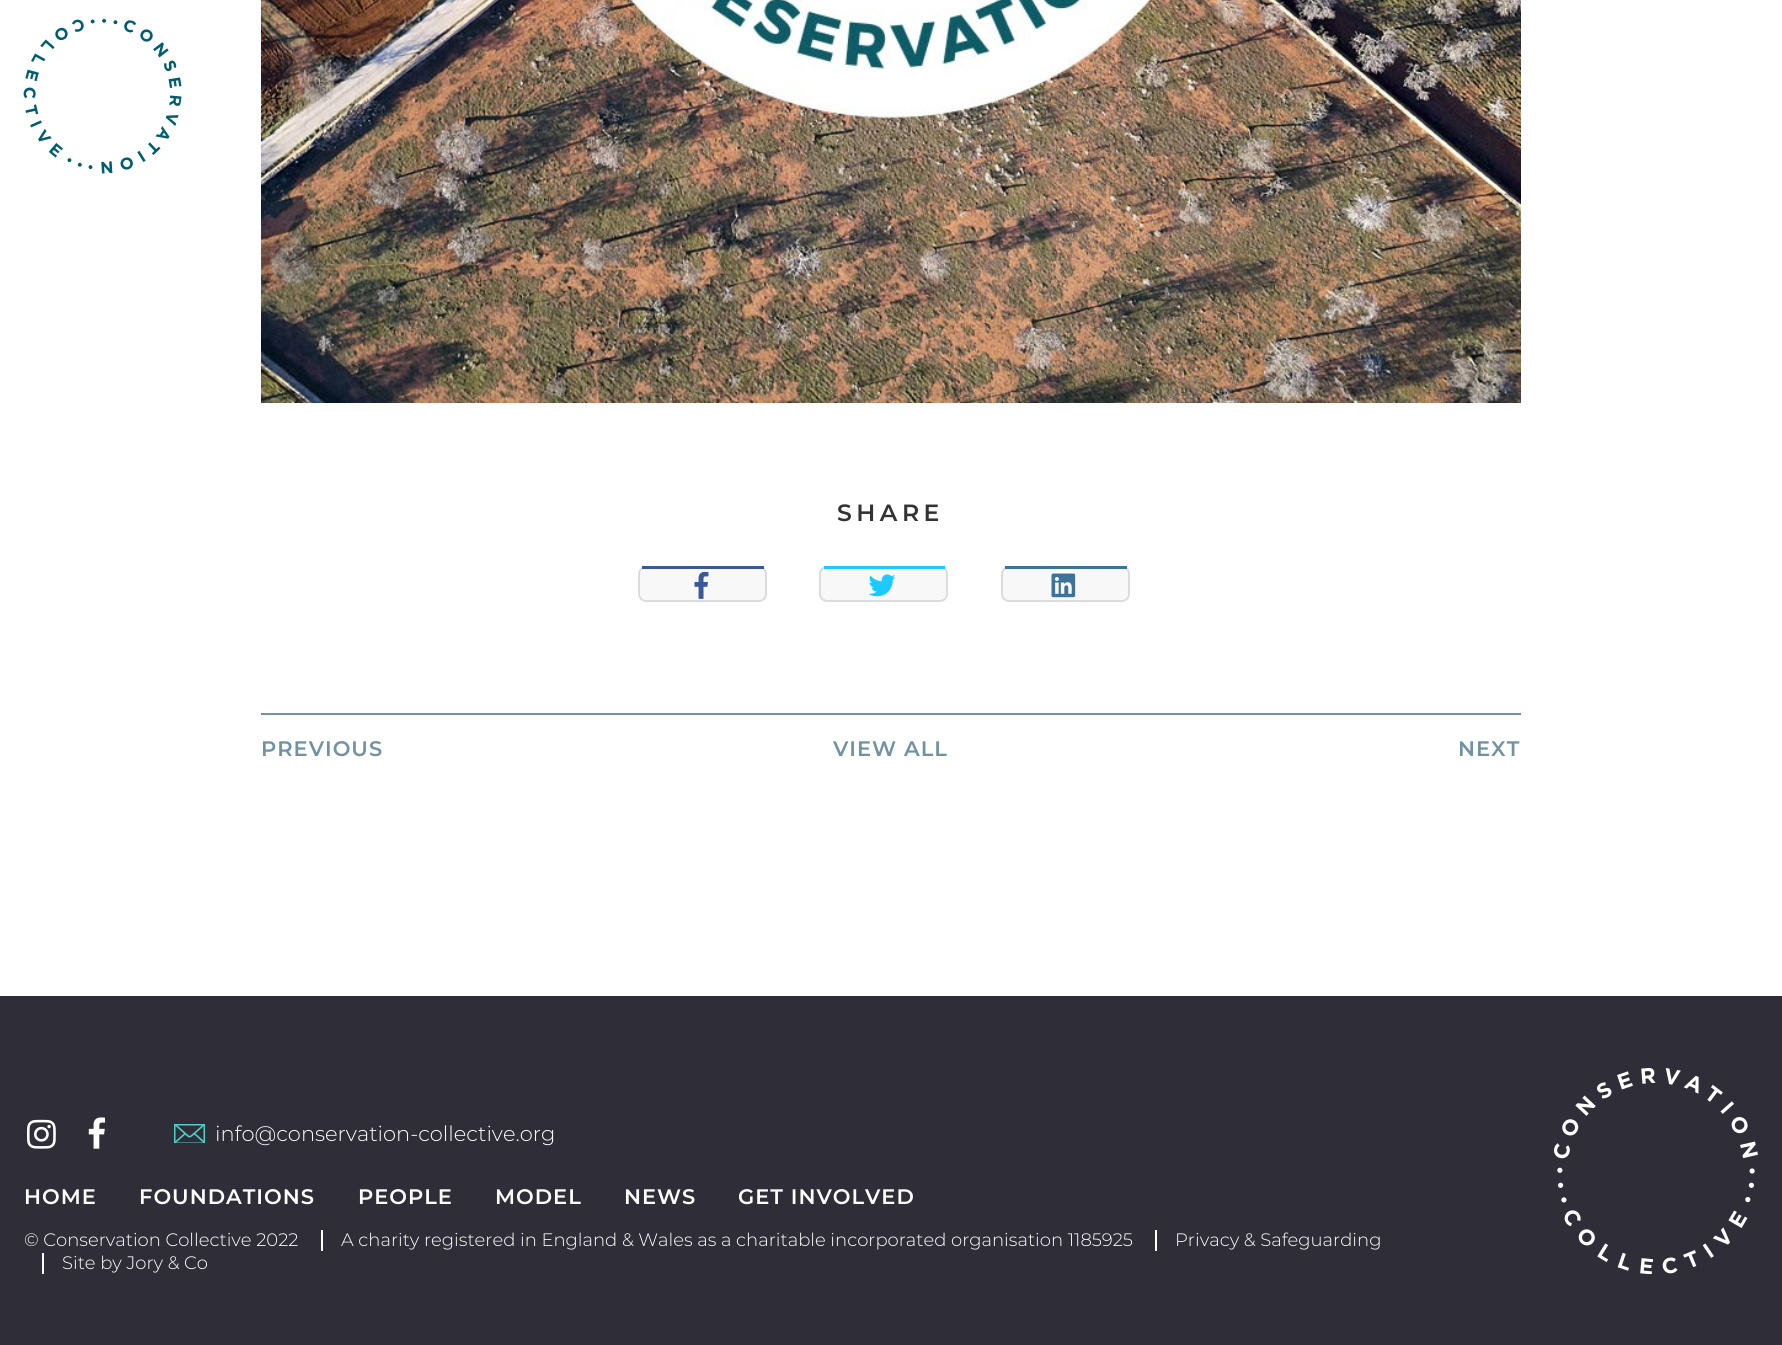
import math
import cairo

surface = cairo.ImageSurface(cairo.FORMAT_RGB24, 1782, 1345)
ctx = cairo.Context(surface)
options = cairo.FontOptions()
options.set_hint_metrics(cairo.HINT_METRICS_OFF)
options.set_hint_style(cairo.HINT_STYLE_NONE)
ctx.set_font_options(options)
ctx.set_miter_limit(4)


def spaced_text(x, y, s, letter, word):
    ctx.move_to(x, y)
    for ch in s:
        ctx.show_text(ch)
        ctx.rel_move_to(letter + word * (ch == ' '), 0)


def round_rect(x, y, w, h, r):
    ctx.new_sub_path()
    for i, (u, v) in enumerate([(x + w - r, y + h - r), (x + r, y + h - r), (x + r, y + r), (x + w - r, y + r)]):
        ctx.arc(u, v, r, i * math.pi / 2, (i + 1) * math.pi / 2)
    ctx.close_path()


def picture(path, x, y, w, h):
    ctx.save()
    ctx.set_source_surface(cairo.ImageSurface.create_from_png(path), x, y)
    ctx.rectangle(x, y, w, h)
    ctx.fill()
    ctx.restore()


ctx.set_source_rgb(1, 1, 1)
ctx.paint()
picture("img1.png", 23, 18, 159, 156)
picture("img2.png", 261, 0, 1260, 403)
ctx.select_font_face("Montserrat SemiBold")
ctx.set_font_size(23.5)
ctx.set_source_rgb(0.2, 0.2, 0.2)
spaced_text(837, 521, "SHARE", 4.5, 0)
ctx.set_source_rgb(0.969, 0.969, 0.969)
round_rect(639, 567, 127, 34, 7)
ctx.fill_preserve()
ctx.set_source_rgb(0.863, 0.863, 0.863)
ctx.stroke()
ctx.set_source_rgb(0.231, 0.349, 0.596)
ctx.rectangle(642, 566, 122, 3)
ctx.fill()
picture("img3.png", 694, 571, 15, 28)
ctx.set_source_rgb(0.969, 0.969, 0.969)
round_rect(820, 567, 127, 34, 7)
ctx.fill_preserve()
ctx.set_source_rgb(0.863, 0.863, 0.863)
ctx.stroke()
ctx.set_source_rgb(0.114, 0.792, 1)
ctx.rectangle(824, 566, 121, 3)
ctx.fill()
picture("img4.png", 868, 574, 28, 23)
ctx.set_source_rgb(0.969, 0.969, 0.969)
round_rect(1002, 567, 127, 34, 7)
ctx.fill_preserve()
ctx.set_source_rgb(0.863, 0.863, 0.863)
ctx.stroke()
ctx.set_source_rgb(0.247, 0.447, 0.608)
ctx.rectangle(1005, 566, 122, 3)
ctx.fill()
picture("img5.png", 1051, 573, 25, 25)
ctx.set_source_rgb(0.439, 0.573, 0.639)
ctx.rectangle(261, 713, 1260, 2)
ctx.fill()
ctx.set_font_size(21)
spaced_text(261, 756, "PREVIOUS", 1, 0)
spaced_text(833, 756, "VIEW ALL", 1, 0)
spaced_text(1458, 756, "NEXT", 1, 0)
ctx.set_source_rgb(0.184, 0.18, 0.22)
ctx.rectangle(0, 996, 1782, 349)
ctx.fill()
picture("img6.png", 27, 1119, 29, 30)
picture("img7.png", 88, 1117, 17, 32)
picture("img8.png", 174, 1124, 32, 19)
ctx.select_font_face("Montserrat Light")
ctx.set_source_rgb(1, 1, 1)
ctx.move_to(215, 1141)
ctx.show_text("info@conservation-collective.org")
picture("img9.png", 1554, 1068, 204, 206)
ctx.select_font_face("Montserrat SemiBold")
spaced_text(24, 1204, "HOME", 1, 0)
spaced_text(139, 1204, "FOUNDATIONS", 1, 0)
spaced_text(358, 1204, "PEOPLE", 1, 0)
spaced_text(495, 1204, "MODEL", 1, 0)
spaced_text(624, 1204, "NEWS", 1, 0)
spaced_text(738, 1204, "GET INVOLVED", 1, 0)
ctx.select_font_face("Montserrat Light")
ctx.set_font_size(18)
ctx.move_to(24, 1246)
ctx.show_text("© Conservation Collective 2022")
ctx.rectangle(321, 1230, 2, 21)
ctx.fill()
ctx.move_to(341, 1246)
ctx.show_text("A charity registered in England & Wales as a charitable incorporated organisation 1185925")
ctx.rectangle(1155, 1230, 2, 21)
ctx.fill()
ctx.move_to(1175, 1246)
ctx.show_text("Privacy & Safeguarding")
ctx.rectangle(42, 1253, 2, 21)
ctx.fill()
ctx.move_to(62, 1269)
ctx.show_text("Site by Jory & Co")
surface.write_to_png("page.png")
